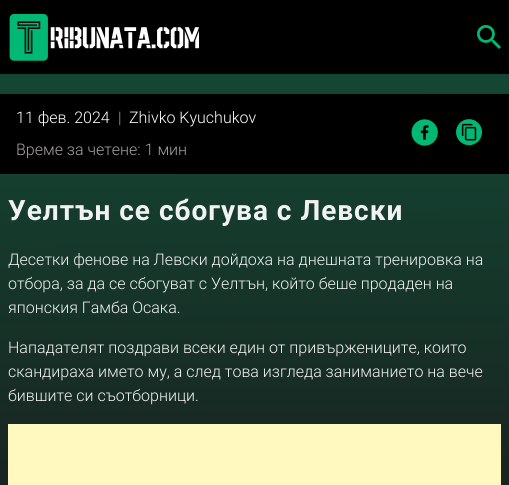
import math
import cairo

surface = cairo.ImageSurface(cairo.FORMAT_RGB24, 509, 485)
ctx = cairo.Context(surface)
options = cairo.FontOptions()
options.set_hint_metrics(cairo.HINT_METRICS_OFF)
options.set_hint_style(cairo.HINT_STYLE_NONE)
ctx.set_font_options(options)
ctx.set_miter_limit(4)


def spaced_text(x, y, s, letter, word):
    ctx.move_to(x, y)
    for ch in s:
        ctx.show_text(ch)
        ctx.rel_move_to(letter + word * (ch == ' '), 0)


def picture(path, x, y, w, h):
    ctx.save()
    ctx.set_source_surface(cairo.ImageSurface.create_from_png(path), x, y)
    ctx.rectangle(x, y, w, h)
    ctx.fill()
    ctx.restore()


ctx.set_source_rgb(1, 1, 1)
ctx.paint()
ctx.set_source_rgb(0, 0, 0)
ctx.rectangle(0, 0, 509, 74)
ctx.fill()
picture("img1.png", 9, 14, 190, 47)
picture("img2.png", 477, 25, 24, 24)
gradient = cairo.LinearGradient(254, -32, 255, 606)
gradient.add_color_stop_rgba(0, 0.071, 0.314, 0.224, 1)
gradient.add_color_stop_rgba(1, 0.102, 0.102, 0.102, 1)
ctx.set_source(gradient)
ctx.rectangle(0, 74, 509, 411)
ctx.fill()
ctx.set_source_rgb(0, 0, 0)
ctx.rectangle(0, 94, 509, 80)
ctx.fill()
ctx.select_font_face("Roboto Light")
ctx.set_font_size(16)
ctx.set_source_rgb(1, 1, 1)
ctx.move_to(16, 123)
ctx.show_text("11 фев. 2024")
ctx.set_source_rgb(0.647, 0.631, 0.631)
ctx.move_to(118, 123)
ctx.show_text("|")
ctx.set_source_rgb(1, 1, 1)
ctx.move_to(129, 123)
ctx.show_text("Zhivko Kyuchukov")
ctx.set_source_rgb(0.647, 0.631, 0.631)
ctx.move_to(16, 155)
ctx.show_text("Време за четене: 1 мин")
picture("img3.png", 411, 119, 27, 27)
picture("img4.png", 456, 119, 27, 27)
ctx.select_font_face("Roboto", cairo.FONT_SLANT_NORMAL, cairo.FONT_WEIGHT_BOLD)
ctx.set_font_size(28)
ctx.set_source_rgb(0.949, 0.949, 0.949)
spaced_text(8, 220, "Уелтън се сбогува с Левски", 1, 0)
ctx.select_font_face("Roboto Light")
ctx.set_font_size(16)
ctx.move_to(8, 265)
ctx.show_text("Десетки фенове на Левски дойдоха на днешната тренировка на")
ctx.move_to(8, 289)
ctx.show_text("отбора, за да се сбогуват с Уелтън, който беше продаден на")
ctx.move_to(8, 313)
ctx.show_text("японския Гамба Осака.")
ctx.move_to(8, 353)
ctx.show_text("Нападателят поздрави всеки един от привържениците, които")
ctx.move_to(8, 377)
ctx.show_text("скандираха името му, а след това изгледа заниманието на вече")
ctx.move_to(8, 401)
ctx.show_text("бившите си съотборници.")
ctx.set_source_rgb(1, 0.976, 0.753)
ctx.rectangle(8, 424, 493, 61)
ctx.fill()
surface.write_to_png("page.png")
